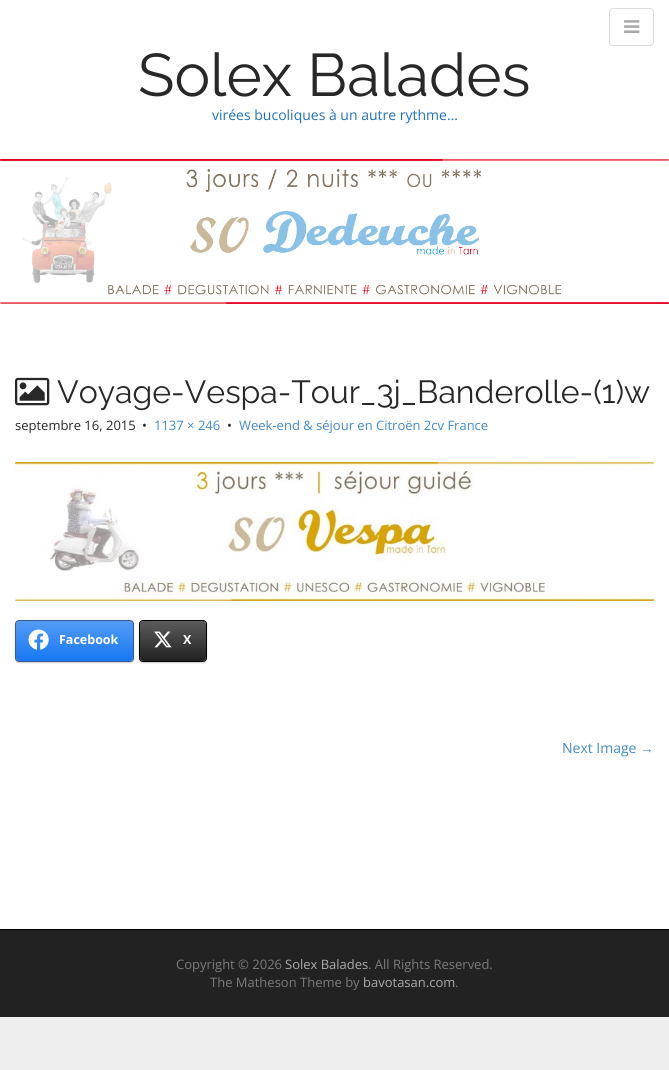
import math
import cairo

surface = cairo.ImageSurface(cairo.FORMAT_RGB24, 669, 1070)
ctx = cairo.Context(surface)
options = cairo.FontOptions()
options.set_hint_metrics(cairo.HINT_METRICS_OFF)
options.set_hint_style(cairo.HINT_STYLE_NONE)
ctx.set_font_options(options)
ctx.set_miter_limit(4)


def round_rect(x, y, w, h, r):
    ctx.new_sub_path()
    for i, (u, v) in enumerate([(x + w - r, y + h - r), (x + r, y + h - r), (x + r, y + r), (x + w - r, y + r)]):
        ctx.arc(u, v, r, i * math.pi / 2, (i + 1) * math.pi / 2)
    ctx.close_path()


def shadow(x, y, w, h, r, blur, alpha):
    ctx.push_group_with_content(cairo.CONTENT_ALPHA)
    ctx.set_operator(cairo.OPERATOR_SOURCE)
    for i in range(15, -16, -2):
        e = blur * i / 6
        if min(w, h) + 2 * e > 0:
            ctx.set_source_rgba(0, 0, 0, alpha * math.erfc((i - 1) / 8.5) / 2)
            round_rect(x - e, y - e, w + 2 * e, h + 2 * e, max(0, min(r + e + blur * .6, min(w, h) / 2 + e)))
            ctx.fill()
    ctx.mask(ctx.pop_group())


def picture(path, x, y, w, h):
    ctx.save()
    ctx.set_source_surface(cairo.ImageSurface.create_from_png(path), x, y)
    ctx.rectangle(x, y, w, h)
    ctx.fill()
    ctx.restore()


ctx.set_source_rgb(0.933, 0.933, 0.933)
ctx.paint()
ctx.set_source_rgb(1, 1, 1)
ctx.rectangle(0, 0, 669, 929)
ctx.fill()
round_rect(609.5, 8.5, 44, 37, 3.5)
ctx.set_source_rgb(0.867, 0.867, 0.867)
ctx.set_line_width(1)
ctx.stroke()
picture("img1.png", 624, 20, 16, 13)
ctx.select_font_face("Raleway Thin")
ctx.set_font_size(60)
ctx.set_source_rgb(0.157, 0.157, 0.157)
ctx.move_to(138, 96)
ctx.show_text("Solex Balades")
ctx.select_font_face("Open Sans")
ctx.set_font_size(14)
ctx.set_source_rgb(0.118, 0.451, 0.745)
ctx.move_to(212, 120)
ctx.show_text("virées bucoliques à un autre rythme…")
picture("img2.png", 0, 159, 669, 145)
picture("img3.png", 15, 377, 35, 29)
ctx.select_font_face("Raleway Thin")
ctx.set_font_size(32)
ctx.set_source_rgb(0.157, 0.157, 0.157)
ctx.move_to(57, 403)
ctx.show_text("Voyage-Vespa-Tour_3j_Banderolle-(1)w")
ctx.select_font_face("Open Sans")
ctx.set_font_size(13)
ctx.move_to(15, 430)
ctx.show_text("septembre 16, 2015")
ctx.move_to(142, 430)
ctx.show_text("•")
ctx.set_source_rgb(0.259, 0.545, 0.792)
ctx.move_to(154, 430)
ctx.show_text("1137 × 246")
ctx.set_source_rgb(0.157, 0.157, 0.157)
ctx.move_to(227, 430)
ctx.show_text("•")
ctx.set_source_rgb(0.259, 0.545, 0.792)
ctx.move_to(239, 430)
ctx.show_text("Week-end & séjour en Citroën 2cv France")
picture("img4.png", 15, 462, 639, 139)
ctx.set_source_rgb(0, 0, 0)
shadow(15, 621, 119, 42, 4, 0.5, 0.19)
ctx.set_source_rgb(0.09, 0.471, 0.949)
round_rect(16, 621, 117, 40, 3)
ctx.fill()
gradient = cairo.LinearGradient(75, 661, 75, 621)
gradient.add_color_stop_rgba(0, 1, 1, 1, 0)
gradient.add_color_stop_rgba(1, 1, 1, 1, 0.26)
ctx.set_source(gradient)
round_rect(16, 621, 117, 40, 3)
ctx.fill()
round_rect(15.5, 620.5, 118, 41, 3.5)
ctx.set_source_rgb(0.22, 0.345, 0.596)
ctx.stroke()
picture("img5.png", 28, 629, 21, 21)
ctx.select_font_face("Open Sans", cairo.FONT_SLANT_NORMAL, cairo.FONT_WEIGHT_BOLD)
ctx.set_font_size(12.5)
ctx.set_source_rgb(1, 1, 1)
ctx.move_to(59, 644)
ctx.show_text("Facebook")
ctx.set_source_rgb(0, 0, 0)
shadow(139, 621, 68, 42, 4, 0.5, 0.19)
ctx.set_source_rgb(0.133, 0.133, 0.133)
round_rect(140, 621, 66, 40, 3)
ctx.fill()
gradient = cairo.LinearGradient(173, 661, 173, 621)
gradient.add_color_stop_rgba(0, 1, 1, 1, 0)
gradient.add_color_stop_rgba(1, 1, 1, 1, 0.26)
ctx.set_source(gradient)
round_rect(140, 621, 66, 40, 3)
ctx.fill()
round_rect(139.5, 620.5, 67, 41, 3.5)
ctx.set_source_rgb(0, 0, 0)
ctx.stroke()
picture("img6.png", 154, 631, 18, 17)
ctx.set_source_rgb(1, 1, 1)
ctx.move_to(183, 644)
ctx.show_text("X")
ctx.select_font_face("Open Sans")
ctx.set_font_size(14)
ctx.set_source_rgb(0.259, 0.545, 0.792)
ctx.move_to(562, 753)
ctx.show_text("Next Image")
ctx.select_font_face("Liberation Sans")
ctx.move_to(640, 753)
ctx.show_text("→")
ctx.set_source_rgb(0.133, 0.133, 0.133)
ctx.rectangle(0, 930, 669, 87)
ctx.fill()
ctx.set_source_rgb(0, 0, 0)
ctx.rectangle(0, 929, 669, 1)
ctx.fill()
ctx.select_font_face("Open Sans")
ctx.set_font_size(13)
ctx.set_source_rgb(0.482, 0.482, 0.482)
ctx.move_to(176, 969)
ctx.show_text("Copyright © 2026")
ctx.set_source_rgb(0.667, 0.667, 0.667)
ctx.move_to(285, 969)
ctx.show_text("Solex Balades")
ctx.set_source_rgb(0.482, 0.482, 0.482)
ctx.move_to(368, 969)
ctx.show_text(". All Rights Reserved.")
ctx.move_to(210, 987)
ctx.show_text("The Matheson Theme by")
ctx.set_source_rgb(0.667, 0.667, 0.667)
ctx.move_to(363, 987)
ctx.show_text("bavotasan.com")
ctx.set_source_rgb(0.482, 0.482, 0.482)
ctx.move_to(455, 987)
ctx.show_text(".")
surface.write_to_png("page.png")
